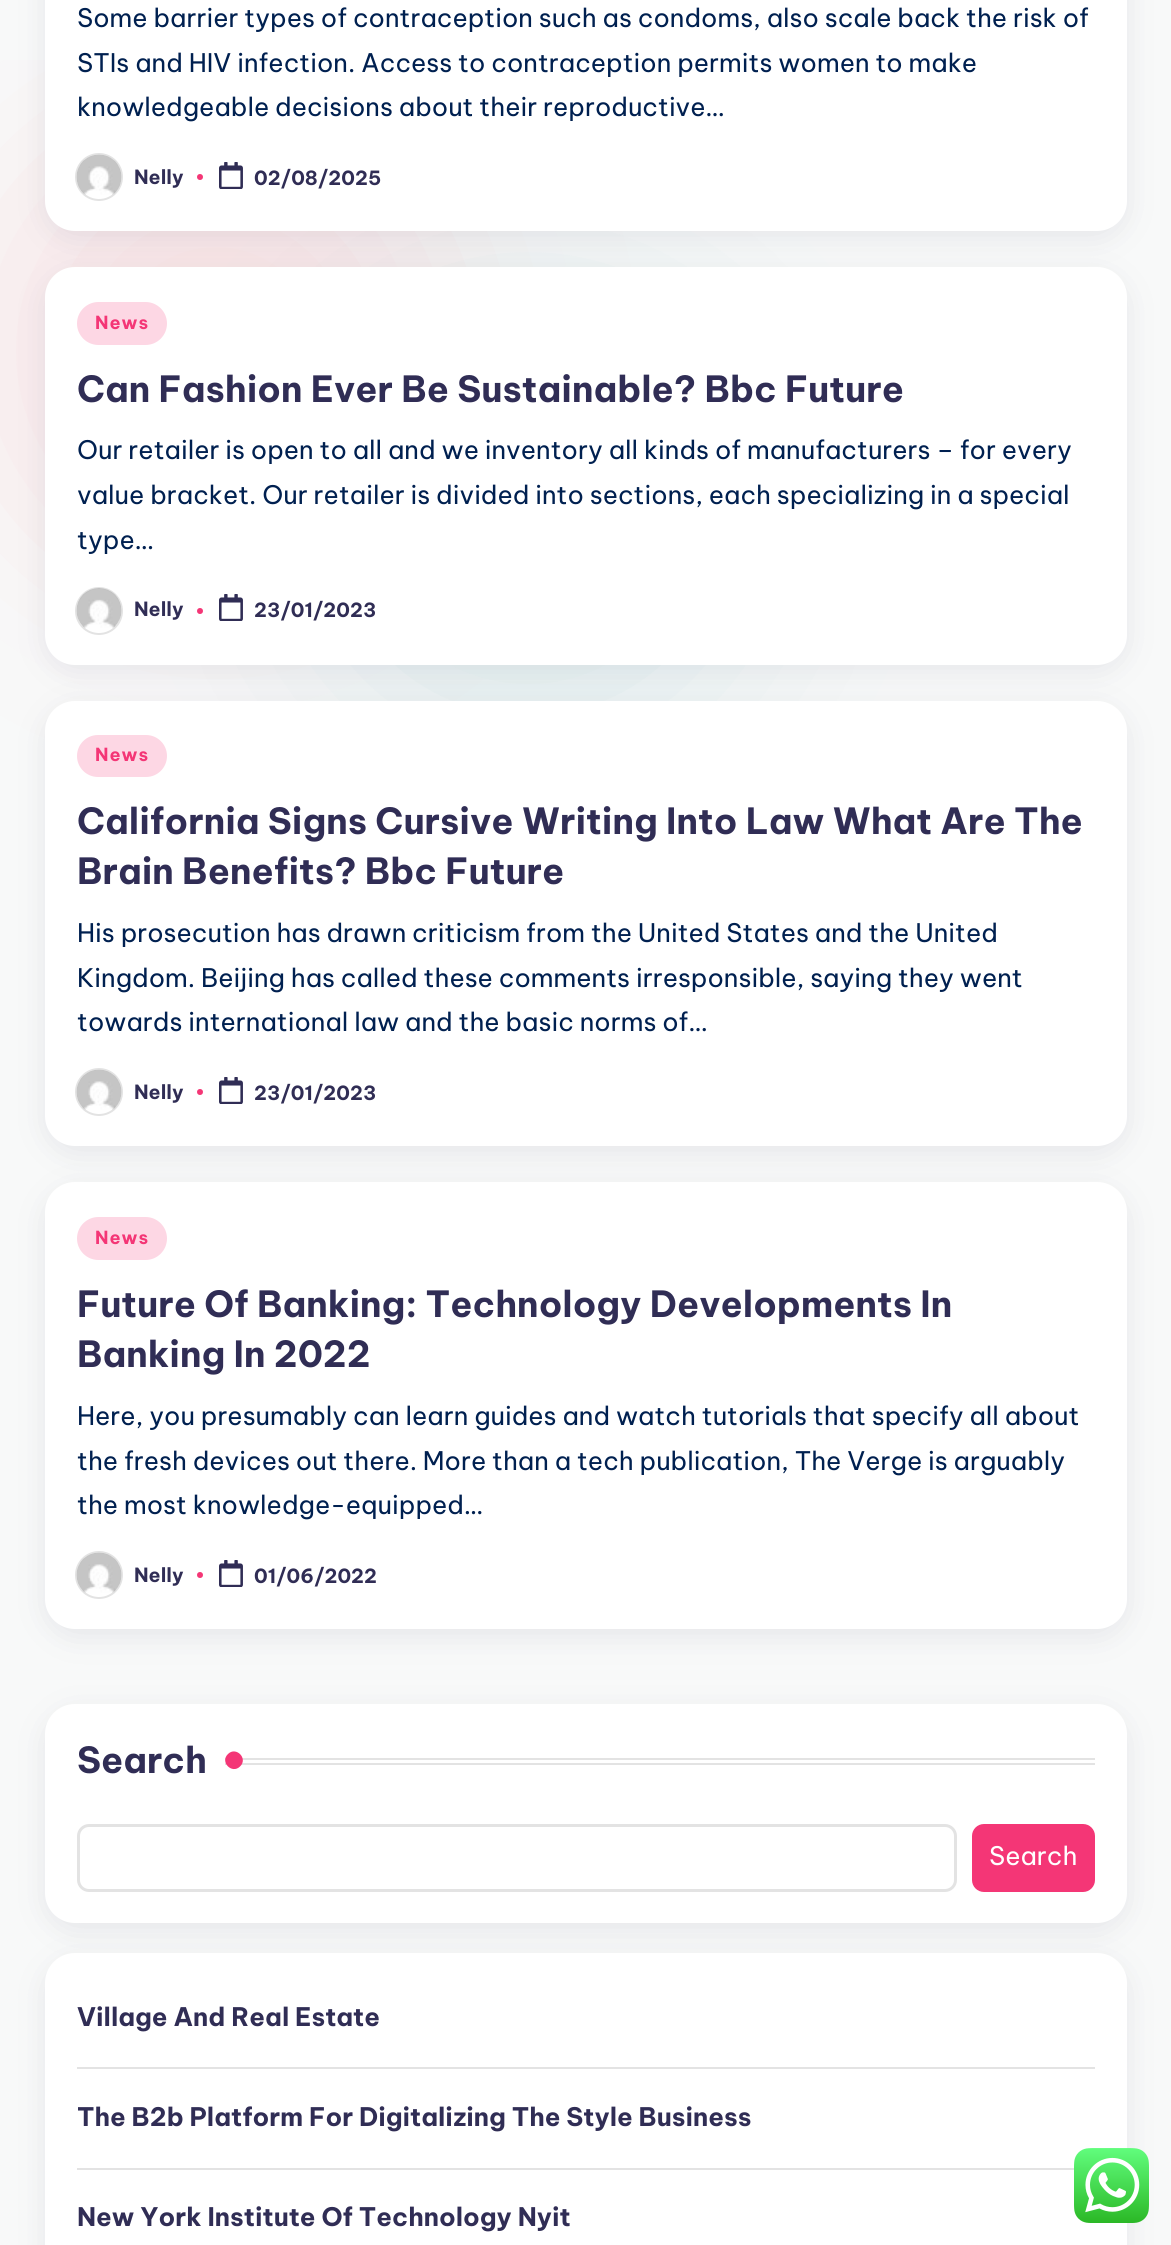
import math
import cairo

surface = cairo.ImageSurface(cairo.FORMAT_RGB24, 1171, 2245)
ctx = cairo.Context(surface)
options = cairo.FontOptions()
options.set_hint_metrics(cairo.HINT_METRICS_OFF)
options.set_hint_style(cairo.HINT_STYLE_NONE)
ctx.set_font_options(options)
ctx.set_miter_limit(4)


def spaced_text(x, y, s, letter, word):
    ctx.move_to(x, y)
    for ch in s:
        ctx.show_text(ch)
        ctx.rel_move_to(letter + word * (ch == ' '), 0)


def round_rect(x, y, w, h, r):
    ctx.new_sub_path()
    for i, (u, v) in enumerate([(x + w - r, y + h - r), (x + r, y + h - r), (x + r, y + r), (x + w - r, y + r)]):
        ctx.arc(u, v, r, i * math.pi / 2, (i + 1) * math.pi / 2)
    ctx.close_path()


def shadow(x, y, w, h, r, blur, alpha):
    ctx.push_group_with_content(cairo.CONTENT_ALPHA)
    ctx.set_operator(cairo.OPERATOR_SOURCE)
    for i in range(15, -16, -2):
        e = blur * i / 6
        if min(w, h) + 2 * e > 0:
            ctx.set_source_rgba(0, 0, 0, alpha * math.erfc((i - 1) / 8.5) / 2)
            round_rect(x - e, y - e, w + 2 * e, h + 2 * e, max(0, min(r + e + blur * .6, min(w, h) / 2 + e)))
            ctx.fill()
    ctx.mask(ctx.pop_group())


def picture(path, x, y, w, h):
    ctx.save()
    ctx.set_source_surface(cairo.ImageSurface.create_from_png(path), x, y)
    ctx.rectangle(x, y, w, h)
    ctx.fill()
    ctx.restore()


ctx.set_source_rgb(0.969, 0.973, 0.976)
ctx.paint()
ctx.save()
ctx.rectangle(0, 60, 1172, 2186)
ctx.clip()
ctx.set_source_rgb(0.969, 0.89, 0.898)
shadow(0, 135, 432, 432, 216, 96, 1)
ctx.restore()
ctx.set_source_rgb(0.016, 0.525, 0.545)
shadow(312, 300, 432, 432, 216, 96, 0.1)
ctx.set_source_rgb(0.271, 0.263, 0.376)
shadow(45, -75, 1082, 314, 30, 15, 0.1)
ctx.set_source_rgb(1, 1, 1)
round_rect(45, -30, 1082, 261, 30)
ctx.fill()
ctx.select_font_face("Be Vietnam Pro")
ctx.set_font_size(25.5)
ctx.set_source_rgb(0, 0.125, 0.314)
ctx.move_to(77, 27)
ctx.show_text("Some barrier types of contraception such as condoms, also scale back the risk of")
ctx.move_to(77, 72)
ctx.show_text("STIs and HIV infection. Access to contraception permits women to make")
ctx.move_to(77, 116)
ctx.show_text("knowledgeable decisions about their reproductive…")
picture("img1.png", 76, 154, 46, 41)
ctx.arc(99, 177, 23, 0, 2 * math.pi)
ctx.set_source_rgba(0.725, 0.725, 0.725, 0.4)
ctx.stroke()
ctx.select_font_face("Be Vietnam Pro", cairo.FONT_SLANT_NORMAL, cairo.FONT_WEIGHT_BOLD)
ctx.set_font_size(19.5)
ctx.set_source_rgb(0.188, 0.176, 0.333)
ctx.move_to(134, 184)
ctx.show_text("Nelly")
ctx.set_source_rgb(0.957, 0.212, 0.463)
ctx.new_path()
ctx.arc(200, 177, 3, 0, 2 * math.pi)
ctx.fill()
picture("img2.png", 219, 162, 24, 27)
ctx.set_source_rgb(0.188, 0.176, 0.333)
ctx.move_to(254, 185)
ctx.show_text("02/08/2025")
ctx.set_source_rgb(0.271, 0.263, 0.376)
shadow(45, 275, 1082, 397, 30, 15, 0.1)
ctx.set_source_rgb(1, 1, 1)
round_rect(45, 267, 1082, 398, 30)
ctx.fill()
ctx.set_source_rgb(0.992, 0.843, 0.894)
round_rect(77, 302, 90, 43, 21.5)
ctx.fill()
ctx.set_font_size(18)
ctx.set_source_rgb(0.957, 0.212, 0.463)
spaced_text(95, 329, "News", 1, 0)
ctx.set_font_size(36)
ctx.set_source_rgb(0.188, 0.176, 0.333)
ctx.move_to(77, 402)
ctx.show_text("Can Fashion Ever Be Sustainable? Bbc Future")
ctx.select_font_face("Be Vietnam Pro")
ctx.set_font_size(25.5)
ctx.set_source_rgb(0, 0.125, 0.314)
ctx.move_to(77, 459)
ctx.show_text("Our retailer is open to all and we inventory all kinds of manufacturers – for every")
ctx.move_to(77, 504)
ctx.show_text("value bracket. Our retailer is divided into sections, each specializing in a special")
ctx.move_to(77, 549)
ctx.show_text("type…")
picture("img3.png", 76, 588, 46, 40)
ctx.arc(99, 611, 23, 0, 2 * math.pi)
ctx.set_source_rgba(0.725, 0.725, 0.725, 0.4)
ctx.stroke()
ctx.select_font_face("Be Vietnam Pro", cairo.FONT_SLANT_NORMAL, cairo.FONT_WEIGHT_BOLD)
ctx.set_font_size(19.5)
ctx.set_source_rgb(0.188, 0.176, 0.333)
ctx.move_to(134, 616)
ctx.show_text("Nelly")
ctx.set_source_rgb(0.957, 0.212, 0.463)
ctx.new_path()
ctx.arc(200, 611, 3, 0, 2 * math.pi)
ctx.fill()
picture("img2.png", 219, 594, 24, 27)
ctx.set_source_rgb(0.188, 0.176, 0.333)
ctx.move_to(254, 617)
ctx.show_text("23/01/2023")
ctx.set_source_rgb(0.271, 0.263, 0.376)
shadow(45, 708, 1082, 446, 30, 15, 0.1)
ctx.set_source_rgb(1, 1, 1)
round_rect(45, 701, 1082, 445, 30)
ctx.fill()
ctx.set_source_rgb(0.992, 0.843, 0.894)
round_rect(77, 735, 90, 42, 21)
ctx.fill()
ctx.set_font_size(18)
ctx.set_source_rgb(0.957, 0.212, 0.463)
spaced_text(95, 761, "News", 1, 0)
ctx.set_font_size(36)
ctx.set_source_rgb(0.188, 0.176, 0.333)
ctx.move_to(77, 834)
ctx.show_text("California Signs Cursive Writing Into Law What Are The")
ctx.move_to(77, 884)
ctx.show_text("Brain Benefits? Bbc Future")
ctx.select_font_face("Be Vietnam Pro")
ctx.set_font_size(25.5)
ctx.set_source_rgb(0, 0.125, 0.314)
ctx.move_to(77, 942)
ctx.show_text("His prosecution has drawn criticism from the United States and the United")
ctx.move_to(77, 987)
ctx.show_text("Kingdom. Beijing has called these comments irresponsible, saying they went")
ctx.move_to(77, 1031)
ctx.show_text("towards international law and the basic norms of…")
picture("img4.png", 76, 1069, 46, 41)
ctx.arc(99, 1092, 23, 0, 2 * math.pi)
ctx.set_source_rgba(0.725, 0.725, 0.725, 0.4)
ctx.stroke()
ctx.select_font_face("Be Vietnam Pro", cairo.FONT_SLANT_NORMAL, cairo.FONT_WEIGHT_BOLD)
ctx.set_font_size(19.5)
ctx.set_source_rgb(0.188, 0.176, 0.333)
ctx.move_to(134, 1099)
ctx.show_text("Nelly")
ctx.set_source_rgb(0.957, 0.212, 0.463)
ctx.new_path()
ctx.arc(200, 1092, 3, 0, 2 * math.pi)
ctx.fill()
picture("img2.png", 219, 1077, 24, 27)
ctx.set_source_rgb(0.188, 0.176, 0.333)
ctx.move_to(254, 1100)
ctx.show_text("23/01/2023")
ctx.set_source_rgb(0.271, 0.263, 0.376)
shadow(45, 1190, 1082, 447, 30, 15, 0.1)
ctx.set_source_rgb(1, 1, 1)
round_rect(45, 1182, 1082, 447, 30)
ctx.fill()
ctx.set_source_rgb(0.992, 0.843, 0.894)
round_rect(77, 1217, 90, 43, 21.5)
ctx.fill()
ctx.set_font_size(18)
ctx.set_source_rgb(0.957, 0.212, 0.463)
spaced_text(95, 1244, "News", 1, 0)
ctx.set_font_size(36)
ctx.set_source_rgb(0.188, 0.176, 0.333)
ctx.move_to(77, 1317)
ctx.show_text("Future Of Banking: Technology Developments In")
ctx.move_to(77, 1367)
ctx.show_text("Banking In 2022")
ctx.select_font_face("Be Vietnam Pro")
ctx.set_font_size(25.5)
ctx.set_source_rgb(0, 0.125, 0.314)
ctx.move_to(77, 1425)
ctx.show_text("Here, you presumably can learn guides and watch tutorials that specify all about")
ctx.move_to(77, 1470)
ctx.show_text("the fresh devices out there. More than a tech publication, The Verge is arguably")
ctx.move_to(77, 1514)
ctx.show_text("the most knowledge-equipped…")
picture("img4.png", 76, 1552, 46, 41)
ctx.arc(99, 1575, 23, 0, 2 * math.pi)
ctx.set_source_rgba(0.725, 0.725, 0.725, 0.4)
ctx.stroke()
ctx.select_font_face("Be Vietnam Pro", cairo.FONT_SLANT_NORMAL, cairo.FONT_WEIGHT_BOLD)
ctx.set_font_size(19.5)
ctx.set_source_rgb(0.188, 0.176, 0.333)
ctx.move_to(134, 1582)
ctx.show_text("Nelly")
ctx.set_source_rgb(0.957, 0.212, 0.463)
ctx.new_path()
ctx.arc(200, 1575, 3, 0, 2 * math.pi)
ctx.fill()
picture("img2.png", 219, 1560, 24, 27)
ctx.set_source_rgb(0.188, 0.176, 0.333)
ctx.move_to(254, 1583)
ctx.show_text("01/06/2022")
ctx.set_source_rgb(0.271, 0.263, 0.376)
shadow(45, 1712, 1082, 219, 30, 15, 0.1)
ctx.set_source_rgb(1, 1, 1)
round_rect(45, 1704, 1082, 219, 30)
ctx.fill()
ctx.set_font_size(36)
ctx.set_source_rgb(0.188, 0.176, 0.333)
ctx.move_to(77, 1773)
ctx.show_text("Search")
ctx.set_source_rgb(0.89, 0.89, 0.89)
ctx.rectangle(225, 1758, 870, 2)
ctx.fill()
ctx.rectangle(225, 1763, 870, 2)
ctx.fill()
ctx.set_source_rgb(0.957, 0.212, 0.463)
ctx.new_path()
ctx.move_to(228, 1754)
ctx.curve_to(236, 1746, 248.5, 1758.5, 240, 1766.5)
ctx.curve_to(232, 1774.5, 219.5, 1762, 228, 1754)
ctx.close_path()
ctx.fill()
round_rect(78.5, 1825.5, 877, 65, 10.5)
ctx.set_source_rgb(0.89, 0.89, 0.89)
ctx.set_line_width(3)
ctx.stroke()
ctx.set_source_rgb(0.957, 0.212, 0.463)
round_rect(973, 1825, 121, 66, 11)
ctx.fill_preserve()
ctx.set_line_width(2)
ctx.stroke()
ctx.select_font_face("Be Vietnam Pro")
ctx.set_font_size(25.5)
ctx.set_source_rgb(1, 1, 1)
ctx.move_to(989, 1865)
ctx.show_text("Search")
ctx.set_source_rgb(0.271, 0.263, 0.376)
shadow(45, 1961, 1082, 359, 30, 15, 0.1)
ctx.set_source_rgb(1, 1, 1)
round_rect(45, 1953, 1082, 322, 30)
ctx.fill()
ctx.select_font_face("Be Vietnam Pro", cairo.FONT_SLANT_NORMAL, cairo.FONT_WEIGHT_BOLD)
ctx.set_source_rgb(0.188, 0.176, 0.333)
ctx.move_to(77, 2026)
ctx.show_text("Village And Real Estate")
ctx.set_source_rgb(0.89, 0.89, 0.89)
ctx.rectangle(77, 2067, 1018, 2)
ctx.fill()
ctx.set_source_rgb(0.188, 0.176, 0.333)
ctx.move_to(77, 2126)
ctx.show_text("The B2b Platform For Digitalizing The Style Business")
ctx.set_source_rgb(0.89, 0.89, 0.89)
ctx.rectangle(77, 2168, 997, 2)
ctx.fill()
ctx.set_source_rgb(0.188, 0.176, 0.333)
ctx.move_to(77, 2226)
ctx.show_text("New York Institute Of Technology Nyit")
ctx.new_path()
ctx.arc(1112, 2178, 29, 0, 2 * math.pi)
ctx.set_source_rgba(0.725, 0.725, 0.725, 0.4)
ctx.stroke()
picture("img5.png", 1074, 2148, 75, 75)
surface.write_to_png("page.png")
